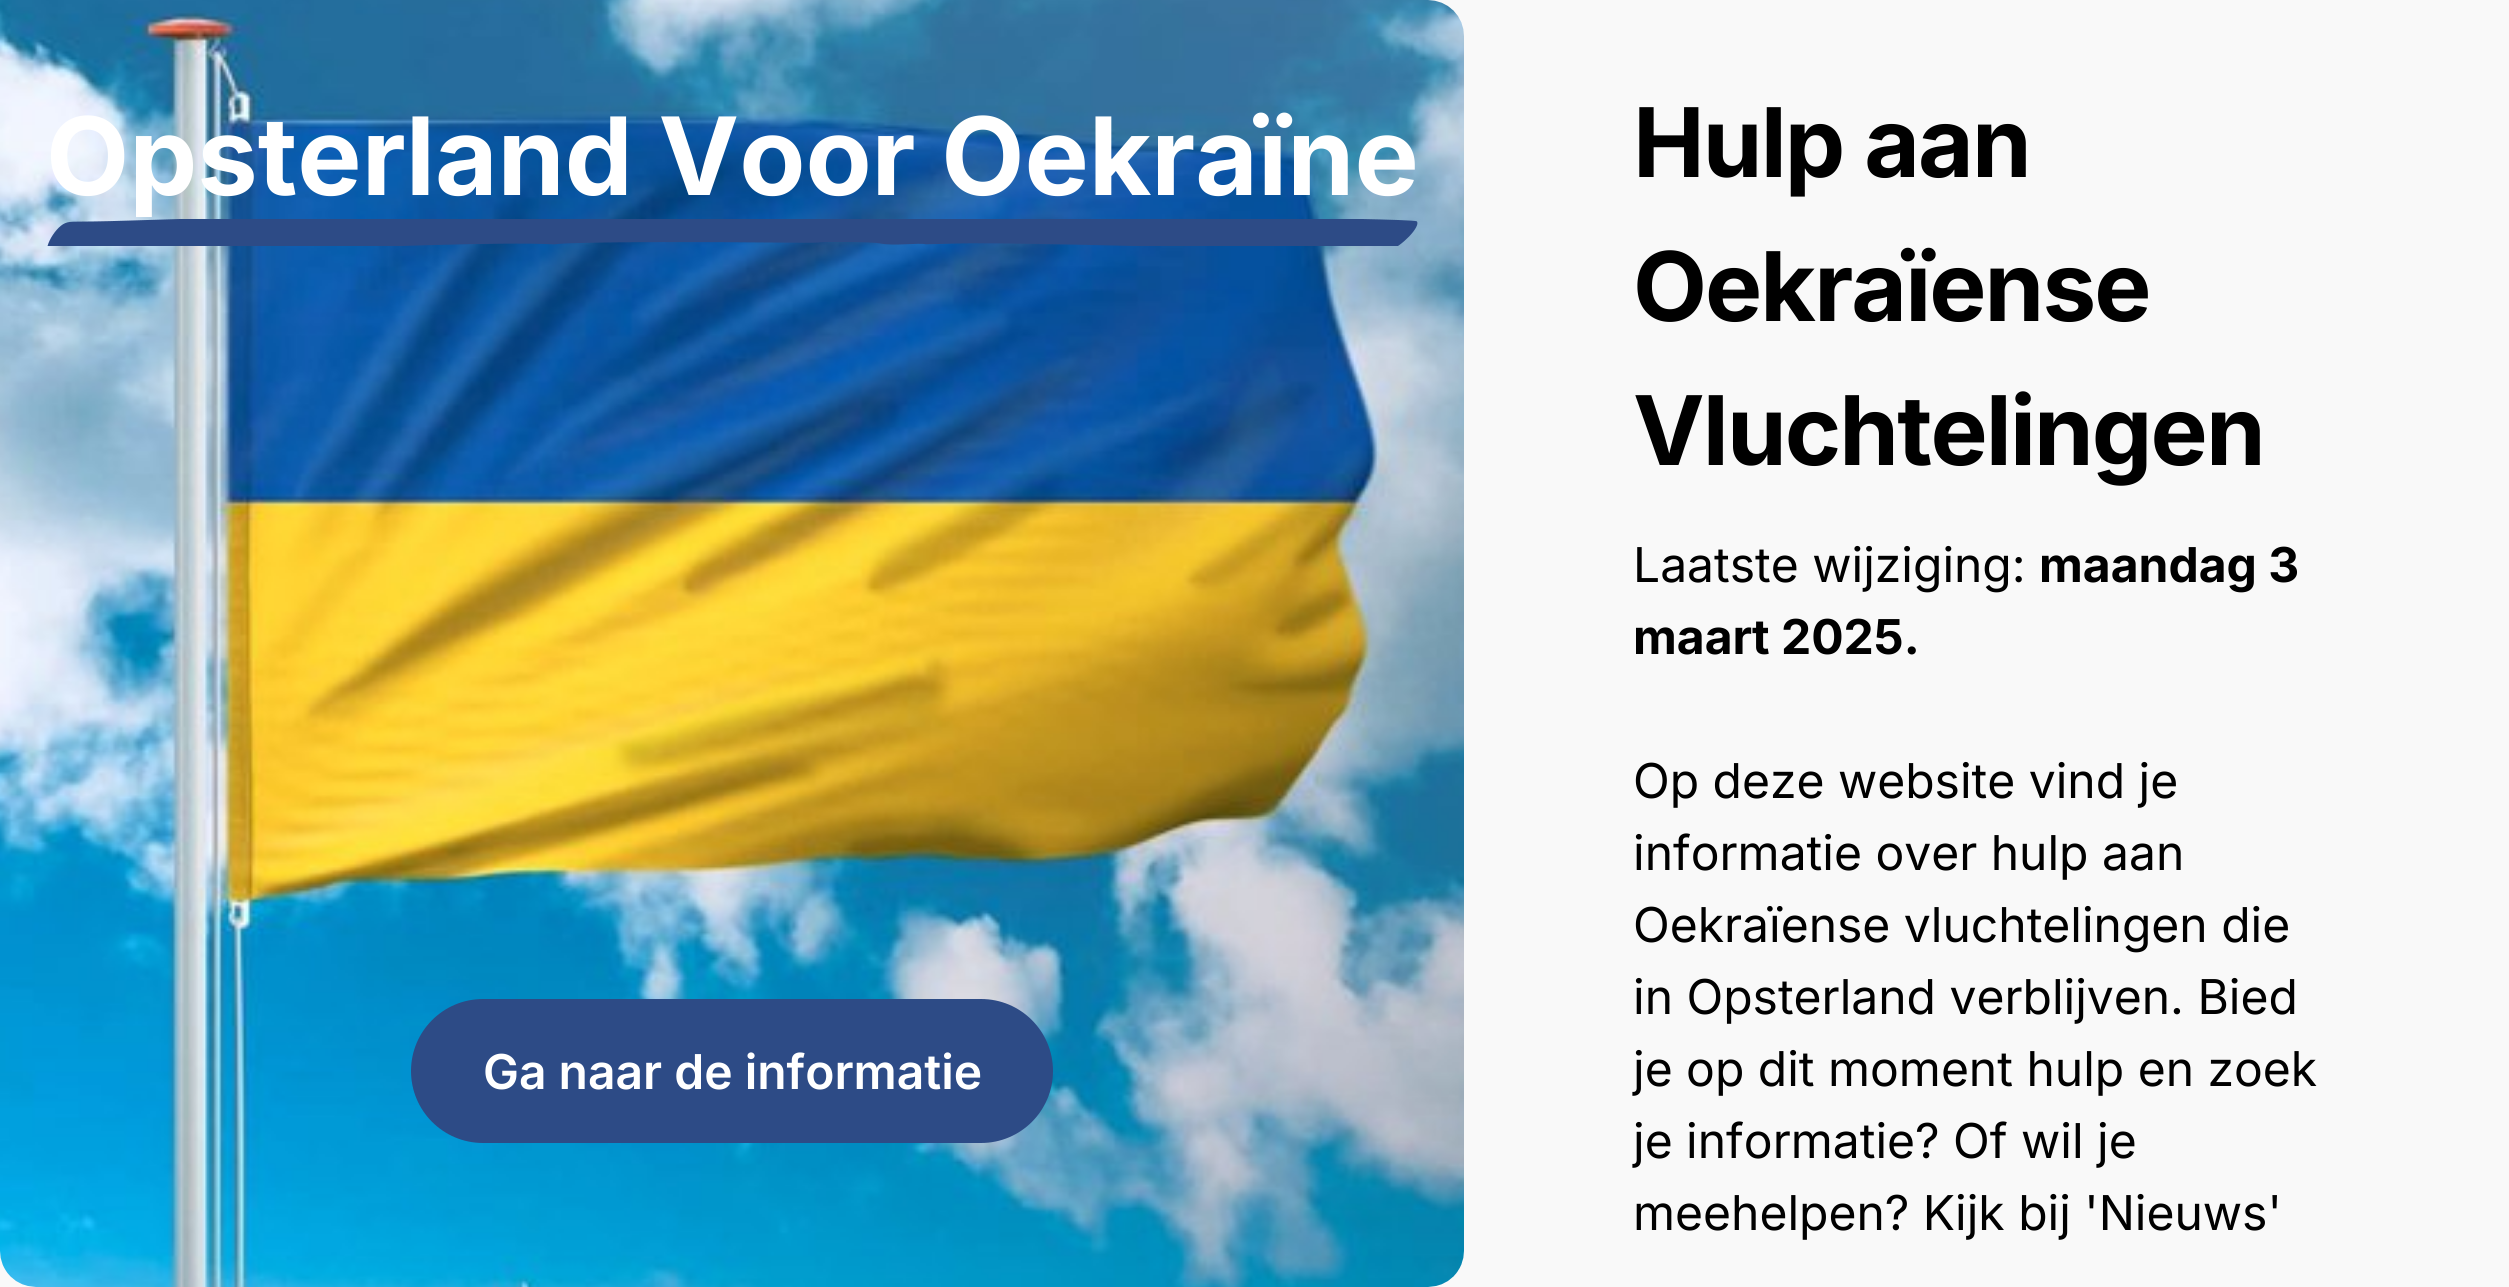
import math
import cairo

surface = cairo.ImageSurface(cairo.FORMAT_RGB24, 2509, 1287)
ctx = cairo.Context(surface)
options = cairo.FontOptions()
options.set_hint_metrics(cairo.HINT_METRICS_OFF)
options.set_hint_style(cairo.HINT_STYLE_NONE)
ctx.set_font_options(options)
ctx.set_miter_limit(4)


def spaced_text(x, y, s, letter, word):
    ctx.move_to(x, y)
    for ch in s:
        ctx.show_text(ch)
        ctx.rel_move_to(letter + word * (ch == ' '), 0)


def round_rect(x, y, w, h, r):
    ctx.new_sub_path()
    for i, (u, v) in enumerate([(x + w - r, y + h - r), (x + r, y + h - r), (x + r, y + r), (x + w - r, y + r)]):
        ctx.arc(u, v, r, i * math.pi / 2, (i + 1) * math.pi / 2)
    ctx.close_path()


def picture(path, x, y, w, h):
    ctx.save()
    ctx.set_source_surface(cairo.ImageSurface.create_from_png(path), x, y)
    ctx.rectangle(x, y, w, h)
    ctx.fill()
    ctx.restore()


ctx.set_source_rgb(0.976, 0.976, 0.976)
ctx.paint()
picture("img1.png", 0, 0, 1464, 1287)
ctx.select_font_face("Inter", cairo.FONT_SLANT_NORMAL, cairo.FONT_WEIGHT_BOLD)
ctx.set_font_size(108)
ctx.set_source_rgb(1, 1, 1)
ctx.move_to(46, 195)
ctx.show_text("Opsterland Voor Oekraïne")
picture("img2.png", 47, 219, 1371, 27)
ctx.set_source_rgb(0.176, 0.294, 0.525)
round_rect(411, 999, 642, 144, 72)
ctx.fill()
ctx.select_font_face("Inter SemiBold")
ctx.set_font_size(48)
ctx.set_source_rgb(1, 1, 1)
ctx.move_to(483, 1089)
ctx.show_text("Ga naar de informatie")
ctx.select_font_face("Inter", cairo.FONT_SLANT_NORMAL, cairo.FONT_WEIGHT_BOLD)
ctx.set_font_size(96)
ctx.set_source_rgb(0, 0, 0)
spaced_text(1633, 177, "Hulp aan", -1.9, 0)
spaced_text(1633, 321, "Oekraïense", -1.9, 0)
spaced_text(1633, 465, "Vluchtelingen", -1.9, 0)
ctx.select_font_face("Inter")
ctx.set_font_size(48)
ctx.move_to(1633, 582)
ctx.show_text("Laatste wijziging:")
ctx.select_font_face("Inter", cairo.FONT_SLANT_NORMAL, cairo.FONT_WEIGHT_BOLD)
ctx.move_to(2039, 582)
ctx.show_text("maandag 3")
ctx.move_to(1633, 654)
ctx.show_text("maart 2025.")
ctx.select_font_face("Inter")
ctx.move_to(1633, 798)
ctx.show_text("Op deze website vind je")
ctx.move_to(1633, 870)
ctx.show_text("informatie over hulp aan")
ctx.move_to(1633, 942)
ctx.show_text("Oekraïense vluchtelingen die")
ctx.move_to(1633, 1014)
ctx.show_text("in Opsterland verblijven. Bied")
ctx.move_to(1633, 1086)
ctx.show_text("je op dit moment hulp en zoek")
ctx.move_to(1633, 1158)
ctx.show_text("je informatie? Of wil je")
ctx.move_to(1633, 1230)
ctx.show_text("meehelpen? Kijk bij 'Nieuws'")
surface.write_to_png("page.png")
